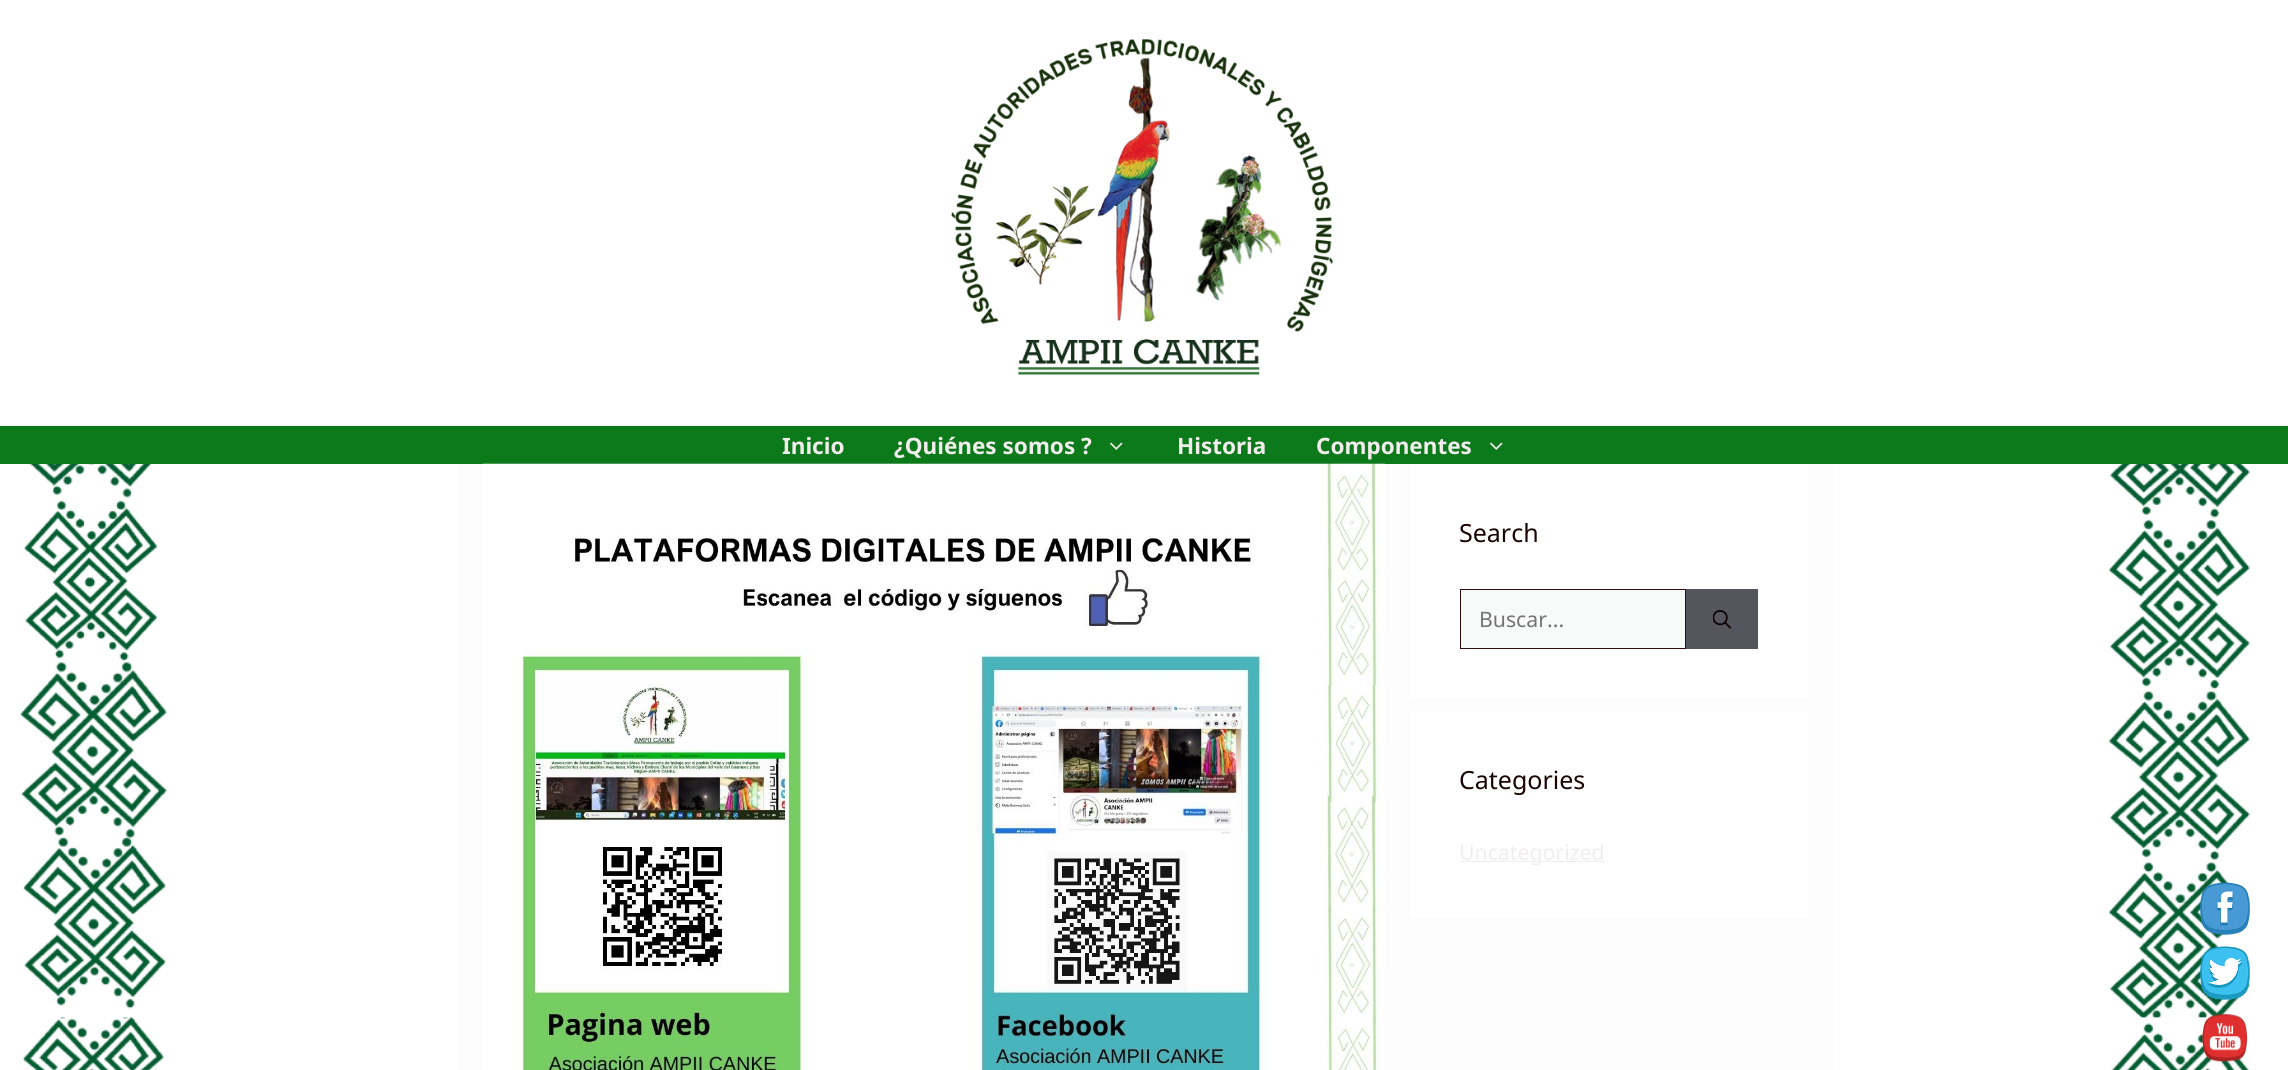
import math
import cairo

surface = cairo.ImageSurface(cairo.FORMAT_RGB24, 2288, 1070)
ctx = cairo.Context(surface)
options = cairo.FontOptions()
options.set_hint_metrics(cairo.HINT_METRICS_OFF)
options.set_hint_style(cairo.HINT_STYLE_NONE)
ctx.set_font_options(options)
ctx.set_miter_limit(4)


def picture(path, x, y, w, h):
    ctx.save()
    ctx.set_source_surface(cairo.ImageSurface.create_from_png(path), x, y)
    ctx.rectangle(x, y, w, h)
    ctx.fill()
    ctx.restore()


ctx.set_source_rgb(1, 1, 1)
ctx.paint()
picture("img1.png", 0, 464, 2288, 606)
picture("img2.png", 951, 39, 382, 336)
ctx.set_source_rgb(0.047, 0.475, 0.102)
ctx.rectangle(0, 426, 2288, 38)
ctx.fill()
ctx.select_font_face("Noto Sans", cairo.FONT_SLANT_NORMAL, cairo.FONT_WEIGHT_BOLD)
ctx.set_font_size(22.5)
ctx.set_source_rgb(0.949, 0.929, 0.929)
ctx.move_to(782, 454)
ctx.show_text("Inicio")
ctx.move_to(894, 454)
ctx.show_text("¿Quiénes somos ?")
picture("img3.png", 1110, 442, 13, 8)
ctx.move_to(1177, 454)
ctx.show_text("Historia")
ctx.move_to(1316, 454)
ctx.show_text("Componentes")
picture("img3.png", 1490, 442, 13, 8)
ctx.set_source_rgb(0.992, 0.988, 0.988)
ctx.rectangle(458, 464, 1375, 606)
ctx.fill()
picture("img4.png", 482, 463, 903, 607)
ctx.set_source_rgb(1, 1, 1)
ctx.rectangle(1410, 464, 398, 235)
ctx.fill()
ctx.select_font_face("Noto Sans")
ctx.set_font_size(25)
ctx.set_source_rgb(0.102, 0.012, 0.012)
ctx.move_to(1459, 542)
ctx.show_text("Search")
ctx.set_source_rgb(0.969, 0.973, 0.976)
ctx.rectangle(1460.5, 589.5, 225, 59)
ctx.fill_preserve()
ctx.set_source_rgb(0.208, 0.047, 0.047)
ctx.set_line_width(1)
ctx.stroke()
ctx.set_font_size(21.25)
ctx.set_source_rgb(0.459, 0.459, 0.459)
ctx.move_to(1479, 627)
ctx.show_text("Buscar...")
ctx.set_source_rgb(0.333, 0.333, 0.369)
ctx.rectangle(1686, 589, 72, 60)
ctx.fill()
picture("img5.png", 1713, 610, 18, 19)
ctx.set_source_rgb(1, 1, 1)
ctx.rectangle(1410, 711, 398, 207)
ctx.fill()
ctx.set_font_size(25)
ctx.set_source_rgb(0.102, 0.012, 0.012)
ctx.move_to(1459, 789)
ctx.show_text("Categories")
ctx.set_source_rgb(0.949, 0.929, 0.929)
ctx.rectangle(1460, 861, 145, 1)
ctx.fill()
ctx.set_font_size(21.25)
ctx.move_to(1459, 860)
ctx.show_text("Uncategorized")
picture("img6.png", 2200, 882, 50, 53)
picture("img7.png", 2200, 946, 50, 54)
picture("img8.png", 2202, 1014, 46, 48)
surface.write_to_png("page.png")
